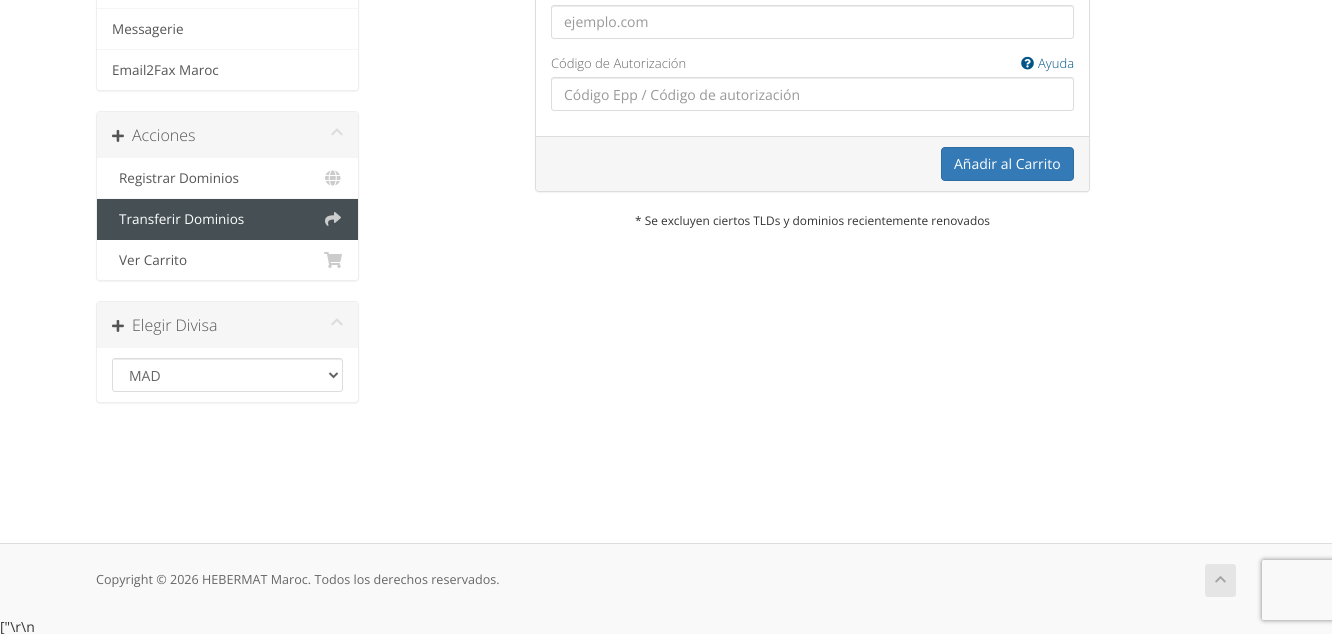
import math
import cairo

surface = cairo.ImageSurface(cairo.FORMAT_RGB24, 1332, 634)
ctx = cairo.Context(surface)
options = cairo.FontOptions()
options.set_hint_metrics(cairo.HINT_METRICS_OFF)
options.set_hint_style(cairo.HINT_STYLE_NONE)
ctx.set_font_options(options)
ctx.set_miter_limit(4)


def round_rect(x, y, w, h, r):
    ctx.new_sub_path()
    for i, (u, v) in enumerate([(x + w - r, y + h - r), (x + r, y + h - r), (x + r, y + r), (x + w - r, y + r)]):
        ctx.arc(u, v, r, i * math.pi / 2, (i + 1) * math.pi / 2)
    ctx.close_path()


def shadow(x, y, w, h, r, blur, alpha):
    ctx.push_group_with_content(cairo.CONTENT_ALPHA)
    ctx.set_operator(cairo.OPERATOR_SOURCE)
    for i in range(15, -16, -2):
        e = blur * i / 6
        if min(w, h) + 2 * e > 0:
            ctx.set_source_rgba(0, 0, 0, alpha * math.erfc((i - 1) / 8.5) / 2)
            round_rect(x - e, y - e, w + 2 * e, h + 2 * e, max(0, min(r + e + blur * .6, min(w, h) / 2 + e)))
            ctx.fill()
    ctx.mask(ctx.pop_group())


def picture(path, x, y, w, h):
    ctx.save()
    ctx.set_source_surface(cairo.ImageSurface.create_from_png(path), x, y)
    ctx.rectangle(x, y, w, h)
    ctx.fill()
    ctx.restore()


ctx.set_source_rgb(0.973, 0.973, 0.973)
ctx.paint()
ctx.set_source_rgb(1, 1, 1)
ctx.rectangle(0, 0, 1332, 543)
ctx.fill()
ctx.set_source_rgb(0, 0, 0)
shadow(96, -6, 263, 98, 4, 0.5, 0.05)
ctx.set_source_rgb(1, 1, 1)
round_rect(96.5, -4.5, 262, 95, 3.5)
ctx.fill_preserve()
ctx.set_source_rgb(0.933, 0.933, 0.933)
ctx.set_line_width(1)
ctx.stroke()
ctx.set_source_rgb(0.961, 0.961, 0.961)
ctx.rectangle(97, 8, 261, 1)
ctx.fill()
ctx.rectangle(97, 49, 261, 1)
ctx.fill()
ctx.select_font_face("Open Sans")
ctx.set_font_size(13.5)
ctx.set_source_rgb(0.333, 0.333, 0.333)
ctx.move_to(112, 34)
ctx.show_text("Messagerie")
ctx.set_source_rgb(1, 1, 1)
ctx.new_path()
ctx.move_to(97, 50)
ctx.line_to(358, 50)
ctx.line_to(358, 87)
ctx.curve_to(358, 88.5, 356.5, 90, 355, 90)
ctx.line_to(100, 90)
ctx.curve_to(98.5, 90, 97, 88.5, 97, 87)
ctx.close_path()
ctx.fill()
ctx.set_source_rgb(0.333, 0.333, 0.333)
ctx.move_to(112, 75)
ctx.show_text("Email2Fax Maroc")
ctx.set_source_rgb(0, 0, 0)
shadow(96, 112, 263, 170, 4, 0.5, 0.05)
ctx.set_source_rgb(1, 1, 1)
round_rect(96.5, 111.5, 262, 169, 3.5)
ctx.fill_preserve()
ctx.set_source_rgb(0.933, 0.933, 0.933)
ctx.stroke()
ctx.set_source_rgb(0.961, 0.961, 0.961)
ctx.new_path()
ctx.move_to(100, 112)
ctx.line_to(355, 112)
ctx.curve_to(356.5, 112, 358, 113.5, 358, 115)
ctx.line_to(358, 158)
ctx.line_to(97, 158)
ctx.line_to(97, 115)
ctx.curve_to(97, 113.5, 98.5, 112, 100, 112)
ctx.close_path()
ctx.fill()
picture("img1.png", 112, 129, 12, 13)
ctx.select_font_face("Open Sans Light")
ctx.set_font_size(16)
ctx.set_source_rgb(0.333, 0.333, 0.333)
ctx.move_to(132, 141)
ctx.show_text("Acciones")
picture("img2.png", 331, 128, 12, 8)
ctx.set_source_rgb(0.961, 0.961, 0.961)
ctx.rectangle(97, 198, 261, 1)
ctx.fill()
ctx.select_font_face("Open Sans")
ctx.set_font_size(13.5)
ctx.set_source_rgb(0.333, 0.333, 0.333)
ctx.move_to(119, 183)
ctx.show_text("Registrar Dominios")
picture("img3.png", 325, 170, 16, 16)
ctx.set_source_rgb(0.275, 0.314, 0.329)
ctx.rectangle(97, 199, 261, 41)
ctx.fill()
ctx.set_source_rgb(1, 1, 1)
ctx.move_to(119, 224)
ctx.show_text("Transferir Dominios")
picture("img4.png", 325, 212, 16, 14)
ctx.new_path()
ctx.move_to(97, 240)
ctx.line_to(358, 240)
ctx.line_to(358, 277)
ctx.curve_to(358, 278.5, 356.5, 280, 355, 280)
ctx.line_to(100, 280)
ctx.curve_to(98.5, 280, 97, 278.5, 97, 277)
ctx.close_path()
ctx.fill()
ctx.set_source_rgb(0.333, 0.333, 0.333)
ctx.move_to(119, 265)
ctx.show_text("Ver Carrito")
picture("img5.png", 324, 252, 18, 16)
ctx.set_source_rgb(0, 0, 0)
shadow(96, 302, 263, 102, 4, 0.5, 0.05)
ctx.set_source_rgb(1, 1, 1)
round_rect(96.5, 301.5, 262, 101, 3.5)
ctx.fill_preserve()
ctx.set_source_rgb(0.933, 0.933, 0.933)
ctx.stroke()
ctx.set_source_rgb(0.961, 0.961, 0.961)
ctx.new_path()
ctx.move_to(100, 302)
ctx.line_to(355, 302)
ctx.curve_to(356.5, 302, 358, 303.5, 358, 305)
ctx.line_to(358, 348)
ctx.line_to(97, 348)
ctx.line_to(97, 305)
ctx.curve_to(97, 303.5, 98.5, 302, 100, 302)
ctx.close_path()
ctx.fill()
picture("img1.png", 112, 319, 12, 13)
ctx.select_font_face("Open Sans Light")
ctx.set_font_size(16)
ctx.set_source_rgb(0.333, 0.333, 0.333)
ctx.move_to(132, 331)
ctx.show_text("Elegir Divisa")
picture("img2.png", 331, 318, 12, 8)
ctx.set_source_rgb(0.925, 0.925, 0.925)
ctx.new_path()
ctx.move_to(115, 360)
ctx.line_to(340, 360)
ctx.curve_to(341, 360, 342, 361, 342, 362)
ctx.curve_to(342, 361, 342, 359, 340, 359)
ctx.line_to(115, 359)
ctx.line_to(114, 360)
ctx.line_to(113, 362)
ctx.curve_to(113, 361, 114, 360, 115, 360)
ctx.close_path()
ctx.fill()
round_rect(112.5, 358.5, 230, 33, 2.5)
ctx.set_source_rgb(0.867, 0.867, 0.867)
ctx.stroke()
ctx.new_path()
ctx.move_to(329.5, 373)
ctx.line_to(333.5, 377)
ctx.line_to(337.5, 373)
ctx.set_source_rgb(0.384, 0.384, 0.384)
ctx.set_line_width(2)
ctx.stroke()
ctx.select_font_face("Open Sans")
ctx.set_font_size(14)
ctx.set_source_rgb(0.4, 0.4, 0.4)
ctx.move_to(129, 381)
ctx.show_text("MAD")
ctx.set_source_rgb(0, 0, 0)
shadow(535, -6, 555, 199, 4, 0.5, 0.05)
ctx.set_source_rgb(1, 1, 1)
round_rect(535.5, -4.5, 554, 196, 3.5)
ctx.fill_preserve()
ctx.set_source_rgb(0.867, 0.867, 0.867)
ctx.set_line_width(1)
ctx.stroke()
ctx.set_source_rgb(0.925, 0.925, 0.925)
ctx.new_path()
ctx.move_to(554, 7)
ctx.line_to(1071, 7)
ctx.curve_to(1072, 7, 1073, 8, 1073, 9)
ctx.curve_to(1073, 8, 1073, 6, 1071, 6)
ctx.line_to(554, 6)
ctx.line_to(552, 7)
ctx.line_to(552, 9)
ctx.curve_to(552, 8, 553, 7, 554, 7)
ctx.close_path()
ctx.fill()
round_rect(551.5, 5.5, 522, 33, 2.5)
ctx.set_source_rgb(0.867, 0.867, 0.867)
ctx.stroke()
ctx.set_source_rgb(0.6, 0.6, 0.6)
ctx.move_to(564, 27)
ctx.show_text("ejemplo.com")
ctx.select_font_face("Open Sans Light")
ctx.set_font_size(13)
ctx.set_source_rgb(0.4, 0.4, 0.4)
ctx.move_to(551, 68)
ctx.show_text("Código de Autorización")
picture("img6.png", 1021, 56, 13, 14)
ctx.set_source_rgb(0, 0.333, 0.533)
ctx.move_to(1038, 68)
ctx.show_text("Ayuda")
ctx.set_source_rgb(0.925, 0.925, 0.925)
ctx.new_path()
ctx.move_to(554, 79)
ctx.line_to(1071, 79)
ctx.curve_to(1072, 79, 1073, 80, 1073, 81)
ctx.curve_to(1073, 80, 1073, 78, 1071, 78)
ctx.line_to(554, 78)
ctx.line_to(552, 79)
ctx.line_to(552, 81)
ctx.curve_to(552, 80, 553, 79, 554, 79)
ctx.close_path()
ctx.fill()
round_rect(551.5, 77.5, 522, 33, 2.5)
ctx.set_source_rgb(0.867, 0.867, 0.867)
ctx.stroke()
ctx.select_font_face("Open Sans")
ctx.set_font_size(14)
ctx.set_source_rgb(0.6, 0.6, 0.6)
ctx.move_to(564, 100)
ctx.show_text("Código Epp / Código de autorización")
ctx.set_source_rgb(0.961, 0.961, 0.961)
ctx.new_path()
ctx.move_to(536, 136)
ctx.line_to(1089, 136)
ctx.line_to(1089, 188)
ctx.curve_to(1089, 189.5, 1087.5, 191, 1086, 191)
ctx.line_to(539, 191)
ctx.curve_to(537.5, 191, 536, 189.5, 536, 188)
ctx.close_path()
ctx.fill()
ctx.set_source_rgb(0.867, 0.867, 0.867)
ctx.rectangle(536, 136, 553, 1)
ctx.fill()
ctx.set_source_rgb(0.2, 0.478, 0.718)
round_rect(941.5, 147.5, 132, 33, 3.5)
ctx.fill_preserve()
ctx.set_source_rgb(0.18, 0.427, 0.643)
ctx.stroke()
ctx.set_source_rgb(1, 1, 1)
ctx.move_to(954, 169)
ctx.show_text("Añadir al Carrito")
ctx.save()
ctx.set_fill_rule(cairo.FILL_RULE_EVEN_ODD)
ctx.new_path()
ctx.move_to(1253, 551)
ctx.line_to(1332, 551)
ctx.line_to(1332, 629)
ctx.line_to(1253, 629)
ctx.close_path()
ctx.move_to(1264, 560)
ctx.line_to(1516, 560)
ctx.curve_to(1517, 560, 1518, 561, 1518, 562)
ctx.line_to(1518, 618)
ctx.curve_to(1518, 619, 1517, 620, 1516, 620)
ctx.line_to(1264, 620)
ctx.curve_to(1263, 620, 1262, 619, 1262, 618)
ctx.line_to(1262, 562)
ctx.curve_to(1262, 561, 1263, 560, 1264, 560)
ctx.close_path()
ctx.clip()
ctx.set_source_rgb(0.502, 0.502, 0.502)
shadow(1262, 560, 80, 60, 2, 2.5, 1)
ctx.restore()
ctx.set_font_size(11.9)
ctx.set_source_rgb(0.2, 0.2, 0.2)
ctx.move_to(635, 225)
ctx.show_text("* Se excluyen ciertos TLDs y dominios recientemente renovados")
ctx.set_source_rgb(0.867, 0.867, 0.867)
ctx.rectangle(0, 543, 1332, 1)
ctx.fill()
ctx.set_font_size(12.6)
ctx.set_source_rgb(0.4, 0.4, 0.4)
ctx.move_to(96, 584)
ctx.show_text("Copyright © 2026 HEBERMAT Maroc. Todos los derechos reservados.")
ctx.set_source_rgb(0.898, 0.898, 0.898)
round_rect(1205, 564, 31, 33, 3)
ctx.fill()
picture("img7.png", 1215, 576, 11, 7)
ctx.set_font_size(14)
ctx.set_source_rgb(0.2, 0.2, 0.2)
ctx.move_to(0, 632)
ctx.show_text("[\"\\r\\n")
surface.write_to_png("page.png")
